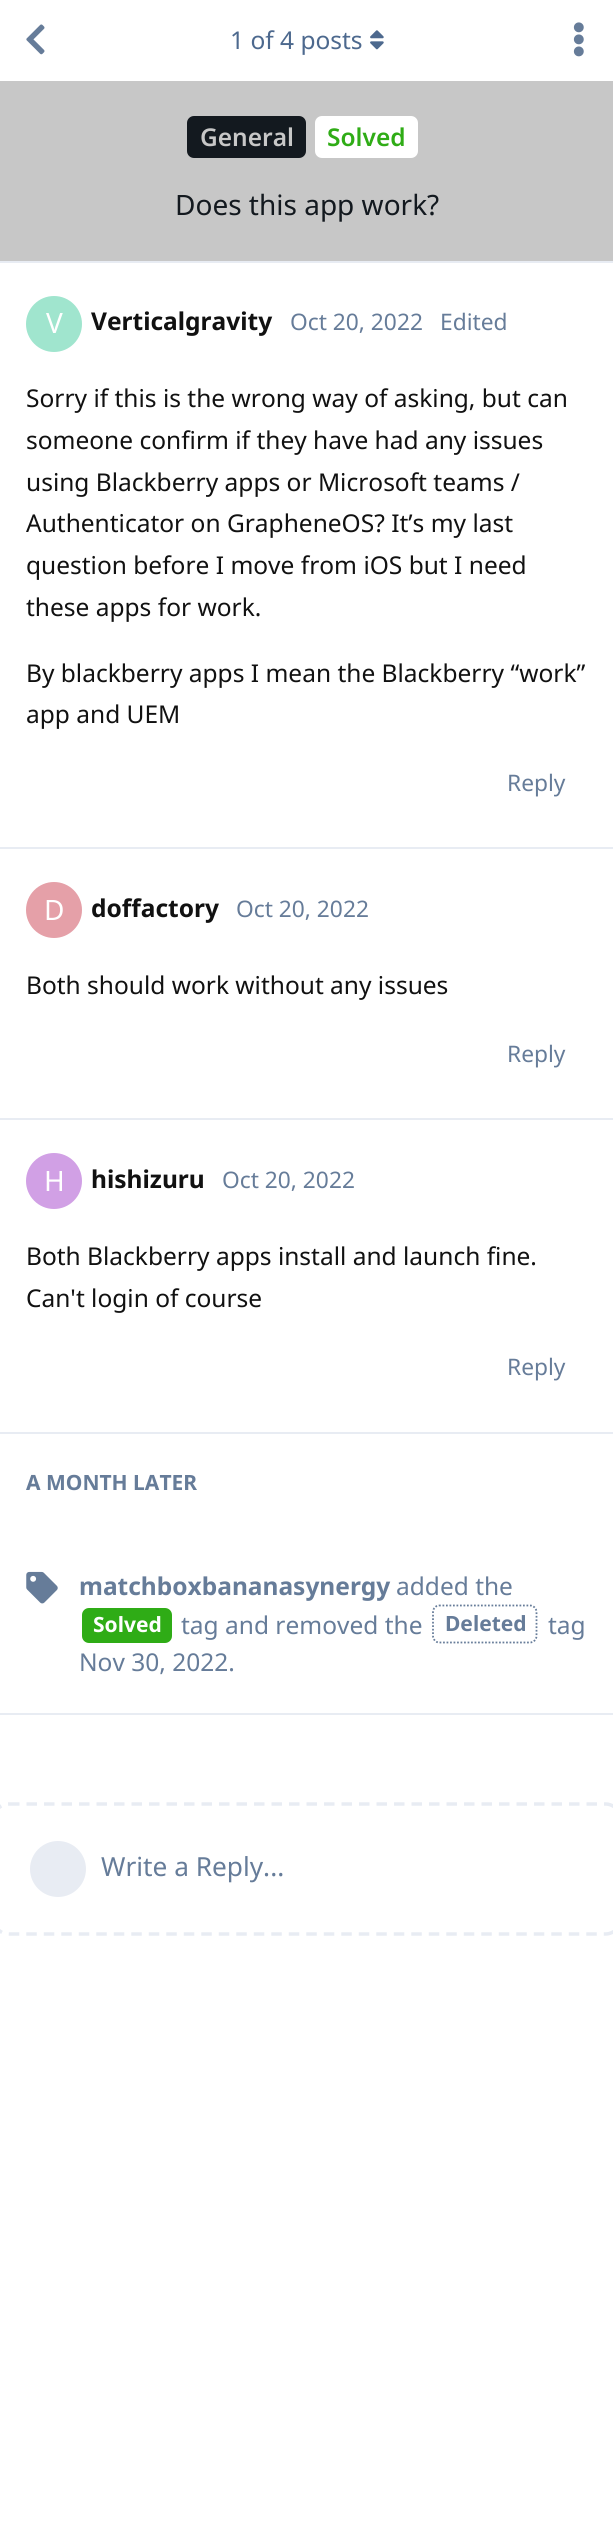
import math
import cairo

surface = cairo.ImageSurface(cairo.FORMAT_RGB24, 613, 2545)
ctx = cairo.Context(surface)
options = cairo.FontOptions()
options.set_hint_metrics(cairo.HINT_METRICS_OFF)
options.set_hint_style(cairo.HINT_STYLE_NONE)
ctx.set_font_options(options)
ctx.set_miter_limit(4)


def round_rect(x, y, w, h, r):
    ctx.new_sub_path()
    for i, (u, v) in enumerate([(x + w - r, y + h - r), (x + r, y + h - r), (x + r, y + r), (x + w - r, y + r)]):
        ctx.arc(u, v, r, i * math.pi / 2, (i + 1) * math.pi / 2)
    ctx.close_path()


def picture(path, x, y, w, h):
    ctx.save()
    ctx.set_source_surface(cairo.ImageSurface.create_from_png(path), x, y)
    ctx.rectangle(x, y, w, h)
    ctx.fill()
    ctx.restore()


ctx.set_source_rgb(1, 1, 1)
ctx.paint()
picture("img1.png", 26, 24, 19, 31)
ctx.set_source_rgb(0.91, 0.925, 0.953)
ctx.rectangle(0, 261, 613, 2)
ctx.fill()
ctx.select_font_face("Noto Sans")
ctx.set_font_size(24.5)
ctx.set_source_rgb(0.302, 0.412, 0.557)
ctx.move_to(230, 49)
ctx.show_text("1 of 4 posts")
picture("img2.png", 370, 30, 14, 20)
picture("img3.png", 573, 22, 11, 35)
ctx.set_source_rgb(0.91, 0.925, 0.953)
ctx.rectangle(0, 847, 613, 2)
ctx.fill()
ctx.set_source_rgb(0.627, 0.898, 0.808)
ctx.arc(54, 324, 28, 0, 2 * math.pi)
ctx.fill()
ctx.set_font_size(28)
ctx.set_source_rgb(1, 1, 1)
ctx.move_to(46, 333)
ctx.show_text("V")
ctx.select_font_face("Noto Sans", cairo.FONT_SLANT_NORMAL, cairo.FONT_WEIGHT_BOLD)
ctx.set_font_size(24.5)
ctx.set_source_rgb(0.067, 0.067, 0.067)
ctx.move_to(91, 330)
ctx.show_text("Verticalgravity")
ctx.select_font_face("Noto Sans")
ctx.set_font_size(22.75)
ctx.set_source_rgb(0.4, 0.486, 0.6)
ctx.move_to(290, 330)
ctx.show_text("Oct 20, 2022")
ctx.move_to(440, 330)
ctx.show_text("Edited")
ctx.set_font_size(24.5)
ctx.set_source_rgb(0.067, 0.067, 0.067)
ctx.move_to(26, 407)
ctx.show_text("Sorry if this is the wrong way of asking, but can")
ctx.move_to(26, 449)
ctx.show_text("someone confirm if they have had any issues")
ctx.move_to(26, 491)
ctx.show_text("using Blackberry apps or Microsoft teams /")
ctx.move_to(26, 532)
ctx.show_text("Authenticator on GrapheneOS? It’s my last")
ctx.move_to(26, 574)
ctx.show_text("question before I move from iOS but I need")
ctx.move_to(26, 616)
ctx.show_text("these apps for work.")
ctx.move_to(26, 682)
ctx.show_text("By blackberry apps I mean the Blackberry “work”")
ctx.move_to(26, 723)
ctx.show_text("app and UEM")
ctx.set_font_size(22.75)
ctx.set_source_rgb(0.4, 0.486, 0.6)
ctx.move_to(507, 791)
ctx.show_text("Reply")
ctx.set_source_rgb(0.91, 0.925, 0.953)
ctx.rectangle(0, 1118, 613, 2)
ctx.fill()
ctx.set_source_rgb(0.898, 0.627, 0.659)
ctx.arc(54, 910, 28, 0, 2 * math.pi)
ctx.fill()
ctx.set_font_size(28)
ctx.set_source_rgb(1, 1, 1)
ctx.move_to(44, 920)
ctx.show_text("D")
ctx.select_font_face("Noto Sans", cairo.FONT_SLANT_NORMAL, cairo.FONT_WEIGHT_BOLD)
ctx.set_font_size(24.5)
ctx.set_source_rgb(0.067, 0.067, 0.067)
ctx.move_to(91, 917)
ctx.show_text("doffactory")
ctx.select_font_face("Noto Sans")
ctx.set_font_size(22.75)
ctx.set_source_rgb(0.4, 0.486, 0.6)
ctx.move_to(236, 917)
ctx.show_text("Oct 20, 2022")
ctx.set_font_size(24.5)
ctx.set_source_rgb(0.067, 0.067, 0.067)
ctx.move_to(26, 994)
ctx.show_text("Both should work without any issues")
ctx.set_font_size(22.75)
ctx.set_source_rgb(0.4, 0.486, 0.6)
ctx.move_to(507, 1062)
ctx.show_text("Reply")
ctx.set_source_rgb(0.91, 0.925, 0.953)
ctx.rectangle(0, 1432, 613, 2)
ctx.fill()
ctx.set_source_rgb(0.82, 0.627, 0.898)
ctx.arc(54, 1181, 28, 0, 2 * math.pi)
ctx.fill()
ctx.set_font_size(28)
ctx.set_source_rgb(1, 1, 1)
ctx.move_to(44, 1191)
ctx.show_text("H")
ctx.select_font_face("Noto Sans", cairo.FONT_SLANT_NORMAL, cairo.FONT_WEIGHT_BOLD)
ctx.set_font_size(24.5)
ctx.set_source_rgb(0.067, 0.067, 0.067)
ctx.move_to(91, 1188)
ctx.show_text("hishizuru")
ctx.select_font_face("Noto Sans")
ctx.set_font_size(22.75)
ctx.set_source_rgb(0.4, 0.486, 0.6)
ctx.move_to(222, 1188)
ctx.show_text("Oct 20, 2022")
ctx.set_font_size(24.5)
ctx.set_source_rgb(0.067, 0.067, 0.067)
ctx.move_to(26, 1265)
ctx.show_text("Both Blackberry apps install and launch fine.")
ctx.move_to(26, 1307)
ctx.show_text("Can't login of course")
ctx.set_font_size(22.75)
ctx.set_source_rgb(0.4, 0.486, 0.6)
ctx.move_to(507, 1375)
ctx.show_text("Reply")
ctx.set_source_rgb(0.91, 0.925, 0.953)
ctx.rectangle(0, 1713, 613, 2)
ctx.fill()
ctx.select_font_face("Noto Sans", cairo.FONT_SLANT_NORMAL, cairo.FONT_WEIGHT_BOLD)
ctx.set_font_size(21)
ctx.set_source_rgb(0.4, 0.486, 0.6)
ctx.move_to(26, 1490)
ctx.show_text("A MONTH LATER")
picture("img4.png", 26, 1571, 32, 33)
ctx.set_font_size(24.5)
ctx.move_to(79, 1595)
ctx.show_text("matchboxbananasynergy")
ctx.select_font_face("Noto Sans")
ctx.move_to(396, 1595)
ctx.show_text("added the")
ctx.set_source_rgb(0.184, 0.675, 0.086)
round_rect(82, 1608, 90, 35, 7)
ctx.fill()
ctx.select_font_face("Noto Sans", cairo.FONT_SLANT_NORMAL, cairo.FONT_WEIGHT_BOLD)
ctx.set_font_size(21)
ctx.set_source_rgb(1, 1, 1)
ctx.move_to(93, 1632)
ctx.show_text("Solved")
ctx.select_font_face("Noto Sans")
ctx.set_font_size(24.5)
ctx.set_source_rgb(0.4, 0.486, 0.6)
ctx.move_to(181, 1634)
ctx.show_text("tag and removed the")
ctx.new_path()
ctx.move_to(439, 1605.5)
ctx.line_to(530, 1605.5)
ctx.curve_to(533.5, 1605.5, 536.5, 1608.5, 536.5, 1612)
ctx.line_to(536.5, 1636)
ctx.curve_to(536.5, 1639.5, 533.5, 1642.5, 530, 1642.5)
ctx.line_to(439, 1642.5)
ctx.curve_to(436, 1642.5, 433, 1639.5, 433, 1636)
ctx.line_to(433, 1612)
ctx.curve_to(433, 1608.5, 436, 1605.5, 439, 1605.5)
ctx.close_path()
ctx.set_line_width(1.8)
ctx.set_dash([1.75, 1.75])
ctx.stroke()
ctx.select_font_face("Noto Sans", cairo.FONT_SLANT_NORMAL, cairo.FONT_WEIGHT_BOLD)
ctx.set_font_size(21)
ctx.move_to(445, 1631)
ctx.show_text("Deleted")
ctx.select_font_face("Noto Sans")
ctx.set_font_size(24.5)
ctx.move_to(548, 1634)
ctx.show_text("tag")
ctx.move_to(79, 1671)
ctx.show_text("Nov 30, 2022.")
ctx.new_path()
ctx.move_to(9, 1804)
ctx.line_to(605.5, 1804)
ctx.curve_to(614, 1804, 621, 1811.5, 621, 1820)
ctx.line_to(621, 1918)
ctx.curve_to(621, 1926.5, 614, 1934, 605.5, 1934)
ctx.line_to(9, 1934)
ctx.curve_to(0, 1934, -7, 1926.5, -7, 1918)
ctx.line_to(-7, 1820)
ctx.curve_to(-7, 1811.5, 0, 1804, 9, 1804)
ctx.close_path()
ctx.set_source_rgb(0.91, 0.925, 0.953)
ctx.set_line_width(3.5)
ctx.set_dash([10.5, 7])
ctx.stroke()
ctx.arc(58, 1869, 28, 0, 2 * math.pi)
ctx.fill()
ctx.set_font_size(26.25)
ctx.set_source_rgb(0.4, 0.486, 0.6)
ctx.move_to(101, 1876)
ctx.show_text("Write a Reply...")
ctx.set_source_rgb(0.78, 0.78, 0.78)
ctx.rectangle(0, 81, 613, 180)
ctx.fill()
ctx.set_source_rgb(0.078, 0.098, 0.122)
round_rect(187, 116, 119, 42, 7)
ctx.fill()
ctx.select_font_face("Noto Sans SemiBold")
ctx.set_font_size(24.5)
ctx.set_source_rgb(0.78, 0.78, 0.78)
ctx.move_to(200, 146)
ctx.show_text("General")
ctx.set_source_rgb(1, 1, 1)
round_rect(315, 116, 103, 42, 7)
ctx.fill()
ctx.set_source_rgb(0.184, 0.675, 0.086)
ctx.move_to(327, 146)
ctx.show_text("Solved")
ctx.select_font_face("Noto Sans")
ctx.set_font_size(28)
ctx.set_source_rgb(0.078, 0.098, 0.122)
ctx.move_to(175, 215)
ctx.show_text("Does this app work?")
surface.write_to_png("page.png")
